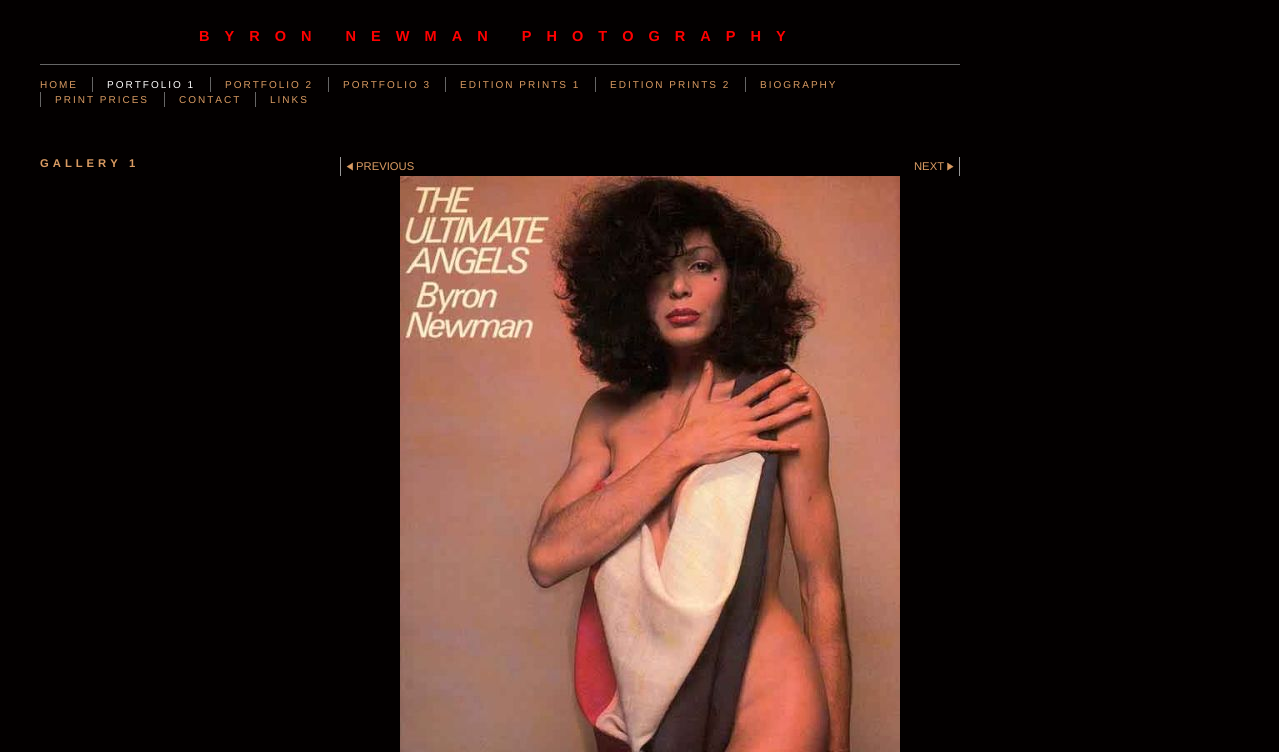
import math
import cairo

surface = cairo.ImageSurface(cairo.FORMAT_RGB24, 1279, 752)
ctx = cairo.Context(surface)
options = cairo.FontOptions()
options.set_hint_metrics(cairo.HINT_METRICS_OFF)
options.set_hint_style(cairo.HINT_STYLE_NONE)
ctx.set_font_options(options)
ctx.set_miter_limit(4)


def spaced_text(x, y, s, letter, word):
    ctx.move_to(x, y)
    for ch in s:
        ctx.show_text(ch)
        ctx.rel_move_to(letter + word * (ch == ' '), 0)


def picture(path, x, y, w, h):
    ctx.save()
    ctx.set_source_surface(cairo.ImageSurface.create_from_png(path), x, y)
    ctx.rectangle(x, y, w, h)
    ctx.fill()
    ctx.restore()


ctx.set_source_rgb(0.012, 0, 0)
ctx.paint()
ctx.set_source_rgb(0.4, 0.4, 0.4)
ctx.rectangle(40, 64, 920, 1)
ctx.fill()
ctx.select_font_face("Liberation Sans", cairo.FONT_SLANT_NORMAL, cairo.FONT_WEIGHT_BOLD)
ctx.set_font_size(14.55)
ctx.set_source_rgb(1, 0, 0)
spaced_text(199, 41, "BYRON NEWMAN PHOTOGRAPHY", 15, 0)
ctx.select_font_face("Liberation Sans")
ctx.set_font_size(10)
ctx.set_source_rgb(0.855, 0.608, 0.384)
spaced_text(40, 88, "HOME", 2, 0)
ctx.set_source_rgb(0.4, 0.4, 0.4)
ctx.rectangle(92, 77, 1, 15)
ctx.fill()
ctx.set_source_rgb(1, 1, 1)
spaced_text(107, 88, "PORTFOLIO 1", 2, 0)
ctx.set_source_rgb(0.4, 0.4, 0.4)
ctx.rectangle(210, 77, 1, 15)
ctx.fill()
ctx.set_source_rgb(0.855, 0.608, 0.384)
spaced_text(225, 88, "PORTFOLIO 2", 2, 0)
ctx.set_source_rgb(0.4, 0.4, 0.4)
ctx.rectangle(328, 77, 1, 15)
ctx.fill()
ctx.set_source_rgb(0.855, 0.608, 0.384)
spaced_text(343, 88, "PORTFOLIO 3", 2, 0)
ctx.set_source_rgb(0.4, 0.4, 0.4)
ctx.rectangle(445, 77, 1, 15)
ctx.fill()
ctx.set_source_rgb(0.855, 0.608, 0.384)
spaced_text(460, 88, "EDITION PRINTS 1", 2, 0)
ctx.set_source_rgb(0.4, 0.4, 0.4)
ctx.rectangle(595, 77, 1, 15)
ctx.fill()
ctx.set_source_rgb(0.855, 0.608, 0.384)
spaced_text(610, 88, "EDITION PRINTS 2", 2, 0)
ctx.set_source_rgb(0.4, 0.4, 0.4)
ctx.rectangle(745, 77, 1, 15)
ctx.fill()
ctx.set_source_rgb(0.855, 0.608, 0.384)
spaced_text(760, 88, "BIOGRAPHY", 2, 0)
ctx.set_source_rgb(0.4, 0.4, 0.4)
ctx.rectangle(40, 92, 1, 15)
ctx.fill()
ctx.set_source_rgb(0.855, 0.608, 0.384)
spaced_text(55, 103, "PRINT PRICES", 2, 0)
ctx.set_source_rgb(0.4, 0.4, 0.4)
ctx.rectangle(164, 92, 1, 15)
ctx.fill()
ctx.set_source_rgb(0.855, 0.608, 0.384)
spaced_text(179, 103, "CONTACT", 2, 0)
ctx.set_source_rgb(0.4, 0.4, 0.4)
ctx.rectangle(255, 92, 1, 15)
ctx.fill()
ctx.set_source_rgb(0.855, 0.608, 0.384)
spaced_text(270, 103, "LINKS", 2, 0)
ctx.select_font_face("Liberation Sans", cairo.FONT_SLANT_NORMAL, cairo.FONT_WEIGHT_BOLD)
ctx.set_font_size(11.25)
spaced_text(40, 167, "GALLERY 1", 4, 0)
ctx.set_source_rgb(0.6, 0.6, 0.6)
ctx.rectangle(340, 157, 1, 19)
ctx.fill()
picture("img1.png", 346, 162, 7, 9)
ctx.select_font_face("Liberation Sans")
ctx.set_source_rgb(0.855, 0.608, 0.384)
ctx.move_to(356, 170)
ctx.show_text("PREVIOUS")
ctx.set_source_rgb(0.6, 0.6, 0.6)
ctx.rectangle(959, 157, 1, 19)
ctx.fill()
ctx.set_source_rgb(0.855, 0.608, 0.384)
ctx.move_to(914, 170)
ctx.show_text("NEXT")
picture("img2.png", 947, 162, 7, 9)
picture("img3.png", 400, 176, 500, 576)
surface.write_to_png("page.png")
